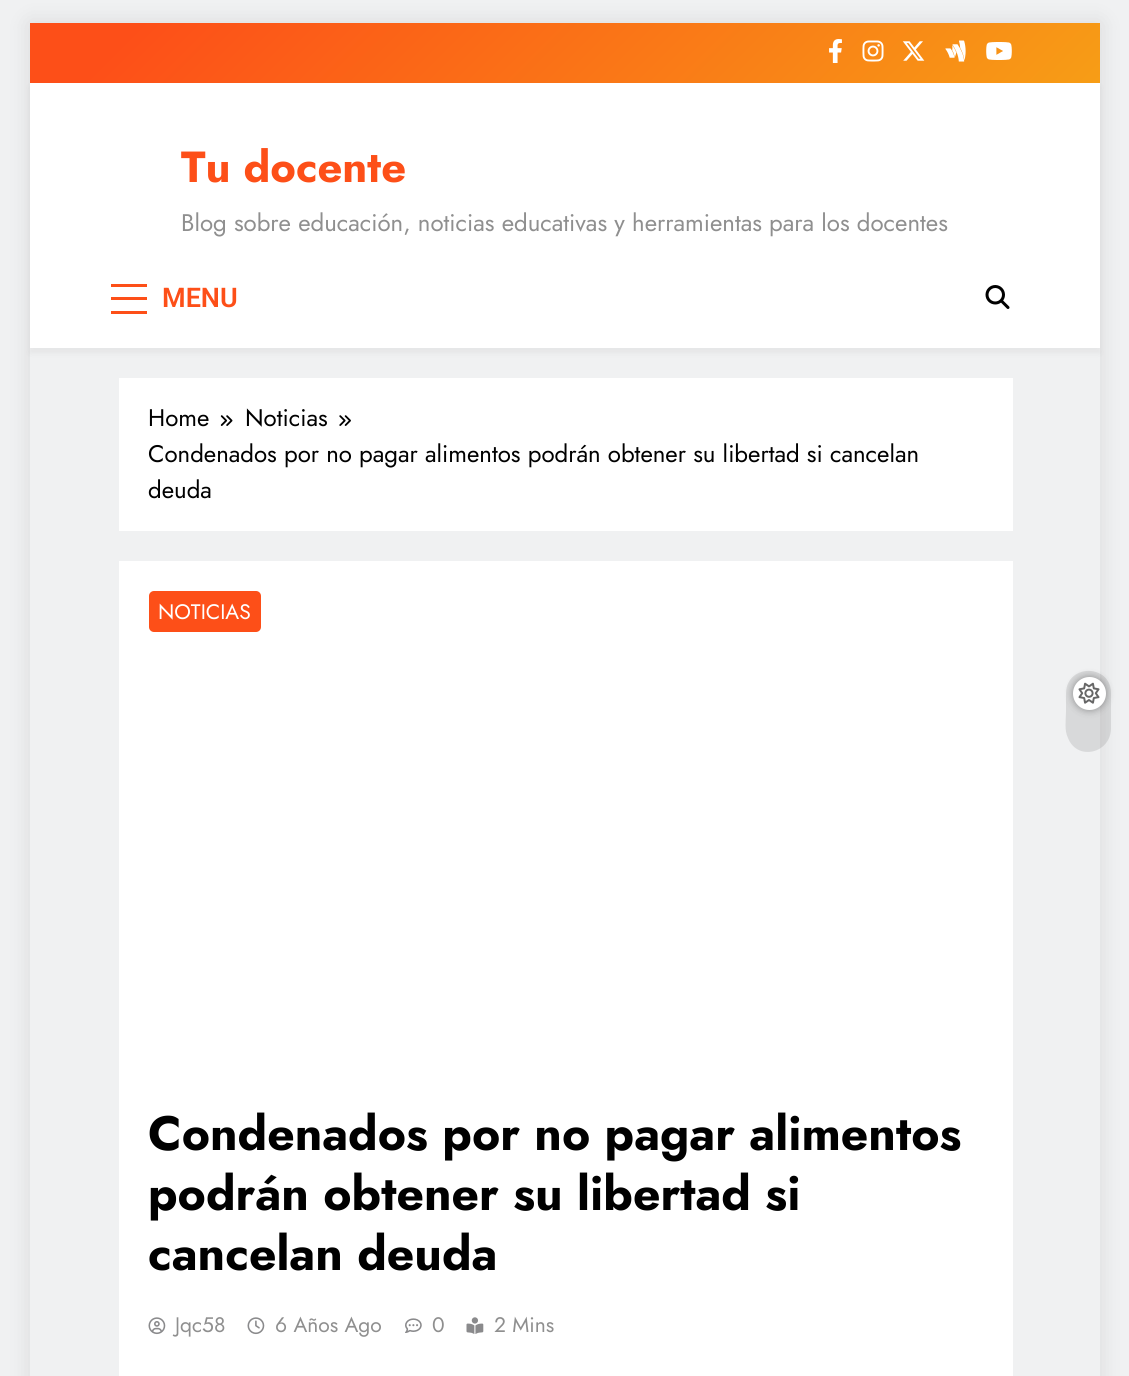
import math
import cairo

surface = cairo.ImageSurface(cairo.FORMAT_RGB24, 1129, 1376)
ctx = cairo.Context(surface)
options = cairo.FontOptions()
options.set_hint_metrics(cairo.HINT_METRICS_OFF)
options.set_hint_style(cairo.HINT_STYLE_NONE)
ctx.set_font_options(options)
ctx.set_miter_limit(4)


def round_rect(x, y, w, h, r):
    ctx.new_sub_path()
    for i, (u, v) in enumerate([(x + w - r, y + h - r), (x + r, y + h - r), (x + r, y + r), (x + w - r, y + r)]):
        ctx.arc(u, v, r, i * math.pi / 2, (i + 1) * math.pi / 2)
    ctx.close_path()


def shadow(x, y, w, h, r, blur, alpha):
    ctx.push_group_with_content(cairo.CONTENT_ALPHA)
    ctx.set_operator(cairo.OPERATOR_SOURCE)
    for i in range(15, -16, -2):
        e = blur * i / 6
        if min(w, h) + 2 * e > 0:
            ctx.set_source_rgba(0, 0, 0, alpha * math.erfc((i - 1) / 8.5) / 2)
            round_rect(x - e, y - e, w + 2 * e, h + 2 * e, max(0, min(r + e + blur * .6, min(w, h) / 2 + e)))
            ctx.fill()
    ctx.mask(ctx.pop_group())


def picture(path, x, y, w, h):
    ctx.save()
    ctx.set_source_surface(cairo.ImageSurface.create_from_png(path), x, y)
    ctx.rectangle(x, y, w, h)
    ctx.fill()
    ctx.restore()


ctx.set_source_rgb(0.941, 0.945, 0.949)
ctx.paint()
ctx.save()
ctx.set_fill_rule(cairo.FILL_RULE_EVEN_ODD)
ctx.new_path()
ctx.move_to(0, 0)
ctx.line_to(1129, 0)
ctx.line_to(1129, 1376)
ctx.line_to(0, 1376)
ctx.close_path()
ctx.move_to(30, 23)
ctx.line_to(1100, 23)
ctx.line_to(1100, 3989)
ctx.line_to(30, 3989)
ctx.close_path()
ctx.clip()
ctx.set_source_rgb(0, 0, 0)
shadow(30, 23, 1070, 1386, 0, 11, 0.1)
ctx.restore()
gradient = cairo.LinearGradient(282, -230, 847, 335)
gradient.add_color_stop_rgba(0.1, 0.992, 0.31, 0.094, 1)
gradient.add_color_stop_rgba(1, 0.969, 0.616, 0.086, 1)
ctx.set_source(gradient)
ctx.rectangle(30, 23, 1070, 60)
ctx.fill()
picture("img1.png", 829, 39, 13, 24)
picture("img2.png", 862, 40, 22, 22)
picture("img3.png", 902, 41, 23, 20)
picture("img4.png", 945, 40, 21, 22)
picture("img5.png", 986, 42, 26, 18)
ctx.set_source_rgb(0, 0, 0)
shadow(30, 87, 1070, 266, 0, 3, 0.05)
ctx.set_source_rgb(1, 1, 1)
ctx.rectangle(30, 83, 1070, 265)
ctx.fill()
ctx.select_font_face("Jost", cairo.FONT_SLANT_NORMAL, cairo.FONT_WEIGHT_BOLD)
ctx.set_font_size(43.5)
ctx.set_source_rgb(0.992, 0.31, 0.094)
ctx.move_to(181, 182)
ctx.show_text("Tu docente")
ctx.select_font_face("Jost")
ctx.set_font_size(24)
ctx.set_source_rgb(0.561, 0.561, 0.561)
ctx.move_to(181, 231)
ctx.show_text("Blog sobre educación, noticias educativas y herramientas para los docentes")
ctx.set_source_rgb(0.992, 0.31, 0.094)
ctx.rectangle(111, 284, 36, 3)
ctx.fill()
ctx.rectangle(111, 297, 36, 3)
ctx.fill()
ctx.rectangle(111, 311, 36, 3)
ctx.fill()
ctx.select_font_face("Roboto SemiBold")
ctx.set_font_size(27)
ctx.move_to(162, 307)
ctx.show_text("MENU")
picture("img6.png", 985, 285, 25, 24)
ctx.set_source_rgba(0, 0, 0, 0.1)
ctx.new_path()
ctx.move_to(1111, 693)
ctx.line_to(1111, 729)
ctx.curve_to(1110, 754, 1077, 761, 1068, 738)
ctx.curve_to(1064, 730, 1066, 720, 1066, 711)
ctx.line_to(1066, 693)
ctx.curve_to(1067, 663, 1111, 664, 1111, 693)
ctx.close_path()
ctx.fill()
ctx.set_source_rgb(0, 0, 0)
shadow(1073, 677, 33, 33, 16.5, 4, 0.35)
ctx.set_source_rgb(1, 1, 1)
ctx.arc(1089.5, 693.5, 16.5, 0, 2 * math.pi)
ctx.fill()
picture("img7.png", 1078, 682, 22, 22)
ctx.rectangle(119, 378, 894, 153)
ctx.fill()
ctx.select_font_face("Jost")
ctx.set_font_size(24)
ctx.set_source_rgb(0, 0, 0)
ctx.move_to(148, 426)
ctx.show_text("Home")
picture("img8.png", 220, 415, 13, 11)
ctx.move_to(245, 426)
ctx.show_text("Noticias")
picture("img9.png", 339, 415, 12, 11)
ctx.move_to(148, 462)
ctx.show_text("Condenados por no pagar alimentos podrán obtener su libertad si cancelan")
ctx.move_to(148, 498)
ctx.show_text("deuda")
ctx.set_source_rgb(1, 1, 1)
ctx.rectangle(119, 561, 894, 815)
ctx.fill()
ctx.set_source_rgb(0.992, 0.31, 0.094)
round_rect(149, 591, 112, 41, 5)
ctx.fill()
ctx.set_font_size(21)
ctx.set_source_rgb(1, 1, 1)
ctx.move_to(158, 619)
ctx.show_text("NOTICIAS")
ctx.select_font_face("Jost", cairo.FONT_SLANT_NORMAL, cairo.FONT_WEIGHT_BOLD)
ctx.set_font_size(48)
ctx.set_source_rgb(0, 0, 0)
ctx.move_to(148, 1150)
ctx.show_text("Condenados por no pagar alimentos")
ctx.move_to(148, 1210)
ctx.show_text("podrán obtener su libertad si")
ctx.move_to(148, 1270)
ctx.show_text("cancelan deuda")
picture("img10.png", 148, 1317, 18, 18)
ctx.select_font_face("Jost")
ctx.set_font_size(21)
ctx.set_source_rgb(0.561, 0.561, 0.561)
ctx.move_to(175, 1332)
ctx.show_text("Jqc58")
picture("img11.png", 247, 1317, 18, 18)
ctx.move_to(275, 1332)
ctx.show_text("6 Años Ago")
picture("img12.png", 405, 1318, 17, 15)
ctx.move_to(432, 1332)
ctx.show_text("0")
picture("img13.png", 466, 1317, 18, 17)
ctx.move_to(494, 1332)
ctx.show_text("2 Mins")
surface.write_to_png("page.png")
